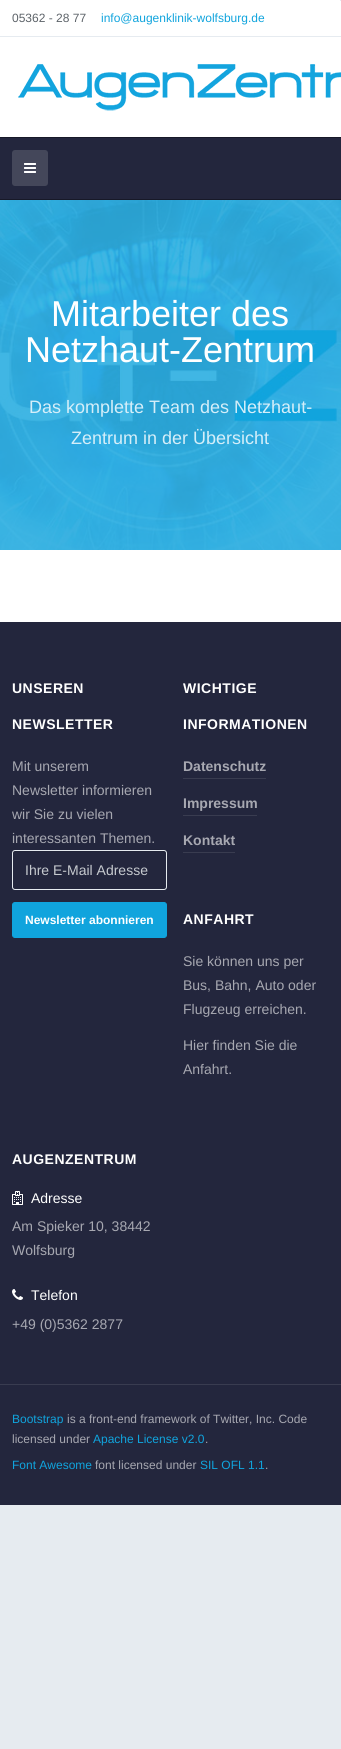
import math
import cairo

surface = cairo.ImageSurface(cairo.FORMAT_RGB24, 341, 1749)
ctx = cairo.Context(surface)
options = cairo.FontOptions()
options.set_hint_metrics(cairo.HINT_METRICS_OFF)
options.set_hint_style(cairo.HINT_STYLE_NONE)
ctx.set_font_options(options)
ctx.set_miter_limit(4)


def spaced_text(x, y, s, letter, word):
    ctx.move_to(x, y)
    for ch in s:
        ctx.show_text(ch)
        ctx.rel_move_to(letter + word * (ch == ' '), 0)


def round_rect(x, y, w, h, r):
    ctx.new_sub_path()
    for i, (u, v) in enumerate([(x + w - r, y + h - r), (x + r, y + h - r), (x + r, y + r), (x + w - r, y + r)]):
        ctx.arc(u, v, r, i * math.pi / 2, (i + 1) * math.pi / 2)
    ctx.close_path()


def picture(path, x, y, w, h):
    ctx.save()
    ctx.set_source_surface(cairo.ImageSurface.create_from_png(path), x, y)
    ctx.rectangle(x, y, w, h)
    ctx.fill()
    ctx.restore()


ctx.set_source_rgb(0.902, 0.918, 0.941)
ctx.paint()
ctx.set_source_rgb(1, 1, 1)
ctx.rectangle(0, 0, 341, 622)
ctx.fill()
ctx.set_source_rgb(0.902, 0.918, 0.941)
ctx.rectangle(0, 36, 341, 1)
ctx.fill()
ctx.rectangle(340, 0, 1, 1)
ctx.fill()
ctx.select_font_face("Liberation Sans")
ctx.set_font_size(12)
ctx.set_source_rgb(0.365, 0.388, 0.412)
ctx.move_to(12, 22)
ctx.show_text("05362 - 28 77")
ctx.set_source_rgb(0.063, 0.643, 0.867)
ctx.move_to(101, 22)
ctx.show_text("info@augenklinik-wolfsburg.de")
picture("img1.png", 18, 64, 323, 47)
ctx.set_source_rgb(0.137, 0.149, 0.239)
ctx.rectangle(0, 138, 341, 61)
ctx.fill()
ctx.set_source_rgb(0.09, 0.098, 0.157)
ctx.rectangle(0, 137, 341, 1)
ctx.fill()
ctx.rectangle(0, 199, 341, 1)
ctx.fill()
ctx.set_source_rgb(0.267, 0.278, 0.353)
round_rect(12, 150, 36, 36, 3)
ctx.fill()
picture("img2.png", 24, 163, 12, 10)
picture("img3.png", 0, 200, 341, 350)
ctx.set_font_size(36)
ctx.set_source_rgb(1, 1, 1)
ctx.move_to(51, 326)
ctx.show_text("Mitarbeiter des")
ctx.move_to(25, 362)
ctx.show_text("Netzhaut-Zentrum")
ctx.set_font_size(18)
ctx.set_source_rgb(0.835, 0.933, 0.973)
ctx.move_to(29, 413)
ctx.show_text("Das komplette Team des Netzhaut-")
ctx.move_to(71, 444)
ctx.show_text("Zentrum in der Übersicht")
ctx.set_source_rgb(0.137, 0.149, 0.239)
ctx.rectangle(0, 622, 341, 883)
ctx.fill()
ctx.select_font_face("Liberation Sans", cairo.FONT_SLANT_NORMAL, cairo.FONT_WEIGHT_BOLD)
ctx.set_font_size(14)
ctx.set_source_rgb(1, 1, 1)
spaced_text(12, 693, "UNSEREN", 0.5, 0)
spaced_text(12, 729, "NEWSLETTER", 0.5, 0)
ctx.select_font_face("Liberation Sans")
ctx.set_source_rgb(0.655, 0.659, 0.694)
ctx.move_to(12, 771)
ctx.show_text("Mit unserem")
ctx.move_to(12, 795)
ctx.show_text("Newsletter informieren")
ctx.move_to(12, 819)
ctx.show_text("wir Sie zu vielen")
ctx.move_to(12, 843)
ctx.show_text("interessanten Themen.")
ctx.set_source_rgb(0.125, 0.137, 0.22)
ctx.new_path()
ctx.move_to(15, 852)
ctx.line_to(164, 852)
ctx.curve_to(165, 852, 166, 853, 166, 854)
ctx.curve_to(166, 845, 142, 851, 139, 851)
ctx.line_to(14, 851)
ctx.curve_to(13, 852, 13, 853, 13, 854)
ctx.curve_to(13, 853, 14, 852, 15, 852)
ctx.close_path()
ctx.fill()
round_rect(12.5, 850.5, 154, 39, 2.5)
ctx.set_source_rgb(0.902, 0.918, 0.941)
ctx.set_line_width(1)
ctx.stroke()
ctx.set_source_rgb(0.776, 0.792, 0.812)
ctx.move_to(25, 875)
ctx.show_text("Ihre E-Mail Adresse")
ctx.set_source_rgb(0.063, 0.643, 0.867)
round_rect(12.5, 902.5, 154, 35, 2.5)
ctx.fill_preserve()
ctx.stroke()
ctx.select_font_face("Liberation Sans", cairo.FONT_SLANT_NORMAL, cairo.FONT_WEIGHT_BOLD)
ctx.set_font_size(12)
ctx.set_source_rgb(1, 1, 1)
ctx.move_to(25, 924)
ctx.show_text("Newsletter abonnieren")
ctx.set_font_size(14)
spaced_text(183, 693, "WICHTIGE", 0.5, 0)
spaced_text(183, 729, "INFORMATIONEN", 0.5, 0)
ctx.set_source_rgb(0.224, 0.235, 0.314)
ctx.rectangle(183, 778, 83, 1)
ctx.fill()
ctx.set_source_rgb(0.655, 0.659, 0.694)
ctx.move_to(183, 771)
ctx.show_text("Datenschutz")
ctx.set_source_rgb(0.224, 0.235, 0.314)
ctx.rectangle(183, 815, 74, 1)
ctx.fill()
ctx.set_source_rgb(0.655, 0.659, 0.694)
ctx.move_to(183, 808)
ctx.show_text("Impressum")
ctx.set_source_rgb(0.224, 0.235, 0.314)
ctx.rectangle(183, 852, 52, 1)
ctx.fill()
ctx.set_source_rgb(0.655, 0.659, 0.694)
ctx.move_to(183, 845)
ctx.show_text("Kontakt")
ctx.set_source_rgb(1, 1, 1)
spaced_text(183, 924, "ANFAHRT", 0.5, 0)
ctx.select_font_face("Liberation Sans")
ctx.set_source_rgb(0.655, 0.659, 0.694)
ctx.move_to(183, 966)
ctx.show_text("Sie können uns per")
ctx.move_to(183, 990)
ctx.show_text("Bus, Bahn, Auto oder")
ctx.move_to(183, 1014)
ctx.show_text("Flugzeug erreichen.")
ctx.move_to(183, 1050)
ctx.show_text("Hier finden Sie die")
ctx.move_to(183, 1074)
ctx.show_text("Anfahrt.")
ctx.select_font_face("Liberation Sans", cairo.FONT_SLANT_NORMAL, cairo.FONT_WEIGHT_BOLD)
ctx.set_source_rgb(1, 1, 1)
spaced_text(12, 1164, "AUGENZENTRUM", 0.5, 0)
picture("img4.png", 12, 1191, 11, 14)
ctx.select_font_face("Liberation Sans")
ctx.move_to(31, 1203)
ctx.show_text("Adresse")
ctx.set_source_rgb(0.655, 0.659, 0.694)
ctx.move_to(12, 1231)
ctx.show_text("Am Spieker 10, 38442")
ctx.move_to(12, 1255)
ctx.show_text("Wolfsburg")
picture("img5.png", 12, 1289, 11, 11)
ctx.set_source_rgb(1, 1, 1)
ctx.move_to(31, 1300)
ctx.show_text("Telefon")
ctx.set_source_rgb(0.655, 0.659, 0.694)
ctx.move_to(12, 1329)
ctx.show_text("+49 (0)5362 2877")
ctx.set_source_rgb(0.224, 0.235, 0.314)
ctx.rectangle(0, 1384, 341, 1)
ctx.fill()
ctx.set_font_size(12)
ctx.set_source_rgb(0.063, 0.643, 0.867)
ctx.move_to(12, 1423)
ctx.show_text("Bootstrap")
ctx.set_source_rgb(0.655, 0.659, 0.694)
ctx.move_to(67, 1423)
ctx.show_text("is a front-end framework of Twitter, Inc. Code")
ctx.move_to(12, 1443)
ctx.show_text("licensed under")
ctx.set_source_rgb(0.063, 0.643, 0.867)
ctx.move_to(93, 1443)
ctx.show_text("Apache License v2.0")
ctx.set_source_rgb(0.655, 0.659, 0.694)
ctx.move_to(205, 1443)
ctx.show_text(".")
ctx.set_source_rgb(0.063, 0.643, 0.867)
ctx.move_to(12, 1469)
ctx.show_text("Font Awesome")
ctx.set_source_rgb(0.655, 0.659, 0.694)
ctx.move_to(95, 1469)
ctx.show_text("font licensed under")
ctx.set_source_rgb(0.063, 0.643, 0.867)
ctx.move_to(200, 1469)
ctx.show_text("SIL OFL 1.1")
ctx.set_source_rgb(0.655, 0.659, 0.694)
ctx.move_to(265, 1469)
ctx.show_text(".")
surface.write_to_png("page.png")
